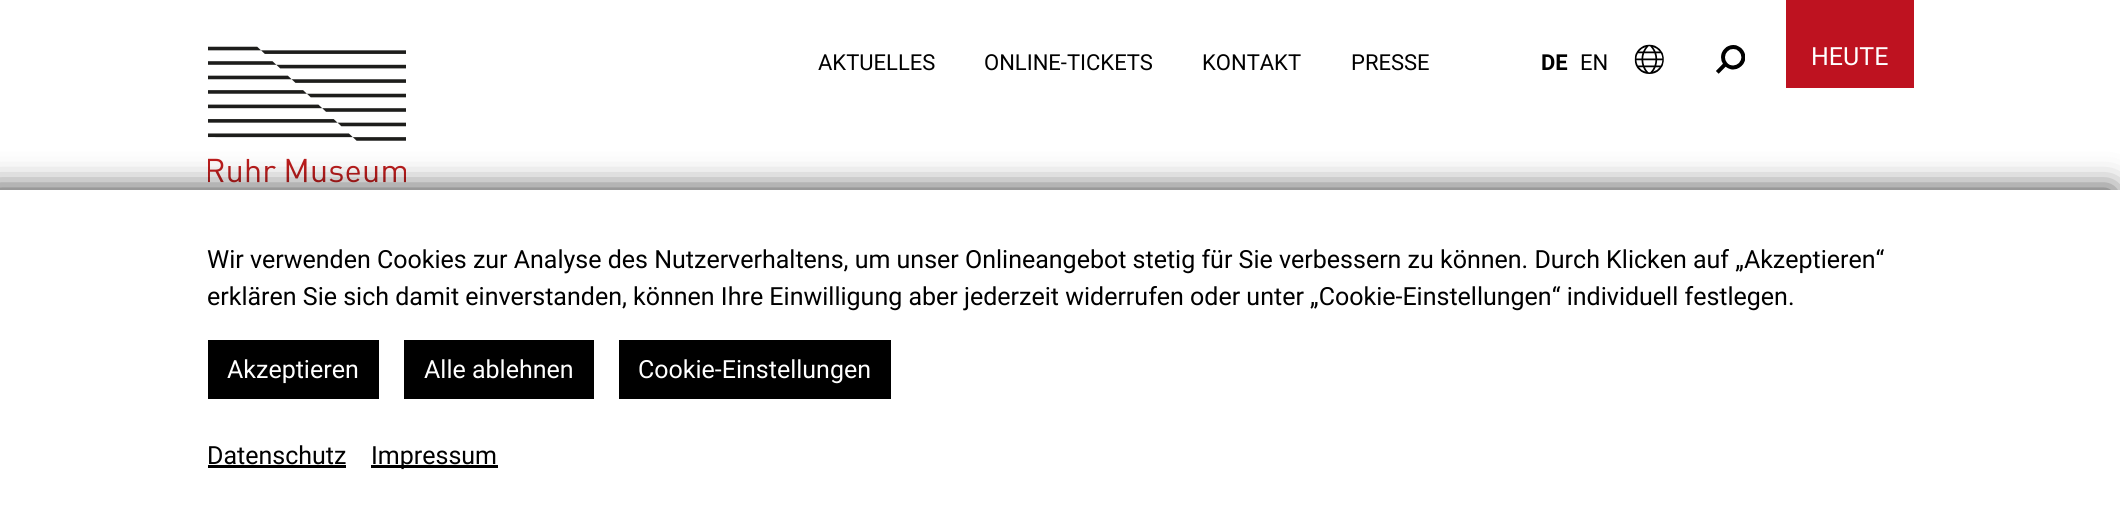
import math
import cairo

surface = cairo.ImageSurface(cairo.FORMAT_RGB24, 2120, 523)
ctx = cairo.Context(surface)
options = cairo.FontOptions()
options.set_hint_metrics(cairo.HINT_METRICS_OFF)
options.set_hint_style(cairo.HINT_STYLE_NONE)
ctx.set_font_options(options)
ctx.set_miter_limit(4)


def round_rect(x, y, w, h, r):
    ctx.new_sub_path()
    for i, (u, v) in enumerate([(x + w - r, y + h - r), (x + r, y + h - r), (x + r, y + r), (x + w - r, y + r)]):
        ctx.arc(u, v, r, i * math.pi / 2, (i + 1) * math.pi / 2)
    ctx.close_path()


def shadow(x, y, w, h, r, blur, alpha):
    ctx.push_group_with_content(cairo.CONTENT_ALPHA)
    ctx.set_operator(cairo.OPERATOR_SOURCE)
    for i in range(15, -16, -2):
        e = blur * i / 6
        if min(w, h) + 2 * e > 0:
            ctx.set_source_rgba(0, 0, 0, alpha * math.erfc((i - 1) / 8.5) / 2)
            round_rect(x - e, y - e, w + 2 * e, h + 2 * e, max(0, min(r + e + blur * .6, min(w, h) / 2 + e)))
            ctx.fill()
    ctx.mask(ctx.pop_group())


def picture(path, x, y, w, h):
    ctx.save()
    ctx.set_source_surface(cairo.ImageSurface.create_from_png(path), x, y)
    ctx.rectangle(x, y, w, h)
    ctx.fill()
    ctx.restore()


ctx.set_source_rgb(1, 1, 1)
ctx.paint()
picture("img1.png", 208, 46, 198, 137)
ctx.select_font_face("Roboto")
ctx.set_font_size(22)
ctx.set_source_rgb(0, 0, 0)
ctx.move_to(818, 70)
ctx.show_text("AKTUELLES")
ctx.move_to(984, 70)
ctx.show_text("ONLINE-TICKETS")
ctx.move_to(1202, 70)
ctx.show_text("KONTAKT")
ctx.move_to(1351, 70)
ctx.show_text("PRESSE")
ctx.select_font_face("Roboto", cairo.FONT_SLANT_NORMAL, cairo.FONT_WEIGHT_BOLD)
ctx.move_to(1541, 70)
ctx.show_text("DE")
ctx.select_font_face("Roboto")
ctx.move_to(1580, 70)
ctx.show_text("EN")
picture("img2.png", 1634, 44, 30, 30)
picture("img3.png", 1716, 45, 29, 29)
ctx.set_source_rgb(0.745, 0.071, 0.125)
ctx.rectangle(1786, 0, 128, 88)
ctx.fill()
ctx.set_font_size(25)
ctx.set_source_rgb(1, 1, 1)
ctx.move_to(1811, 65)
ctx.show_text("HEUTE")
ctx.set_source_rgb(0, 0, 0)
shadow(-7, 190, 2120, 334, 0, 15.5, 0.8)
ctx.set_source_rgb(1, 1, 1)
ctx.rectangle(0, 190, 2120, 333)
ctx.fill()
ctx.set_source_rgb(0, 0, 0)
ctx.move_to(207, 268)
ctx.show_text("Wir verwenden Cookies zur Analyse des Nutzerverhaltens, um unser Onlineangebot stetig für Sie verbessern zu können. Durch Klicken auf „Akzeptieren“")
ctx.move_to(207, 305)
ctx.show_text("erklären Sie sich damit einverstanden, können Ihre Einwilligung aber jederzeit widerrufen oder unter „Cookie-Einstellungen“ individuell festlegen.")
ctx.rectangle(208, 340, 171, 59)
ctx.fill()
ctx.set_source_rgb(1, 1, 1)
ctx.move_to(227, 378)
ctx.show_text("Akzeptieren")
ctx.set_source_rgb(0, 0, 0)
ctx.rectangle(404, 340, 190, 59)
ctx.fill()
ctx.set_source_rgb(1, 1, 1)
ctx.move_to(424, 378)
ctx.show_text("Alle ablehnen")
ctx.set_source_rgb(0, 0, 0)
ctx.rectangle(619, 340, 272, 59)
ctx.fill()
ctx.set_source_rgb(1, 1, 1)
ctx.move_to(638, 378)
ctx.show_text("Cookie-Einstellungen")
ctx.set_source_rgb(0, 0, 0)
ctx.move_to(207, 464)
ctx.show_text("Datenschutz")
ctx.rectangle(208, 465, 138, 3)
ctx.fill()
ctx.rectangle(371, 465, 127, 3)
ctx.fill()
ctx.move_to(371, 464)
ctx.show_text("Impressum")
surface.write_to_png("page.png")
